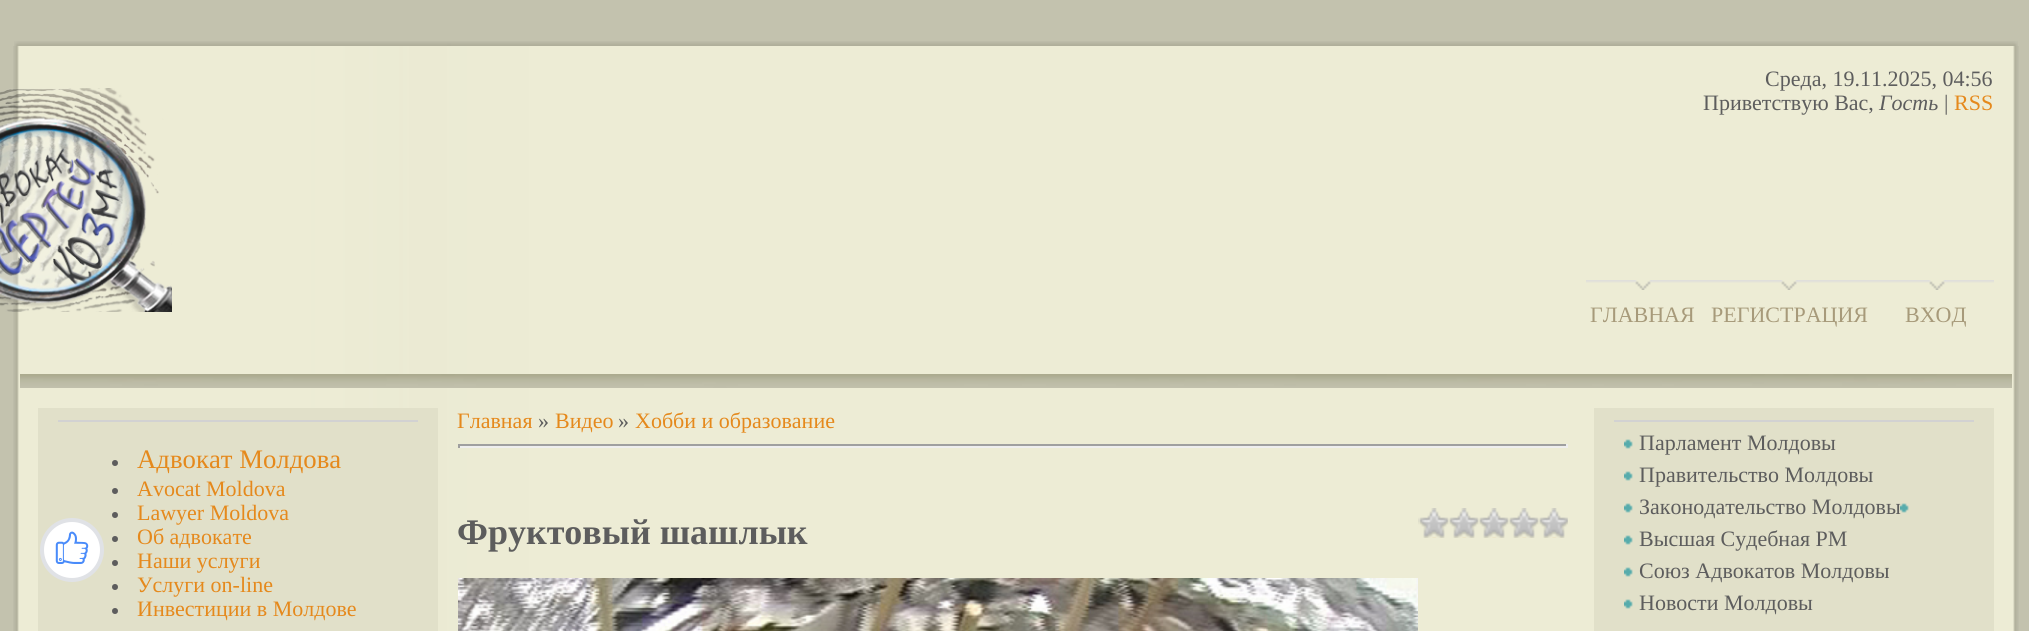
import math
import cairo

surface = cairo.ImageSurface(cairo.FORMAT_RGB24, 2029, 631)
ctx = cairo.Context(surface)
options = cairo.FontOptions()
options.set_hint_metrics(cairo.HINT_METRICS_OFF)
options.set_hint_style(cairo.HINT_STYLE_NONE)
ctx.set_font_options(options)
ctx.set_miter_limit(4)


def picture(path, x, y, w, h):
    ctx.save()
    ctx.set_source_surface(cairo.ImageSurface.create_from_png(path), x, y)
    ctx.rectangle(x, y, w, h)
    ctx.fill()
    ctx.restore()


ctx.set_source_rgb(0.765, 0.761, 0.682)
ctx.paint()
picture("img3.png", 13, 46, 2006, 585)
ctx.set_source_rgb(0.882, 0.878, 0.788)
ctx.rectangle(38, 408, 400, 223)
ctx.fill()
ctx.set_source_rgb(1, 1, 1)
ctx.arc(72, 550, 30, 0, 2 * math.pi)
ctx.fill_preserve()
ctx.set_source_rgb(0.878, 0.886, 0.902)
ctx.set_line_width(4)
ctx.stroke()
picture("img1.png", 55, 531, 34, 33)
picture("img2.png", 14, 41, 2004, 5)
picture("img4.png", 0, 88, 172, 224)
ctx.select_font_face("Liberation Serif")
ctx.set_font_size(22)
ctx.set_source_rgb(0.365, 0.365, 0.365)
ctx.move_to(1765, 86)
ctx.show_text("Среда, 19.11.2025, 04:56")
ctx.move_to(1703, 110)
ctx.show_text("Приветствую Вас,")
ctx.select_font_face("Liberation Serif", cairo.FONT_SLANT_ITALIC)
ctx.move_to(1879, 110)
ctx.show_text("Гость")
ctx.select_font_face("Liberation Serif")
ctx.move_to(1944, 110)
ctx.show_text("|")
ctx.set_source_rgb(0.898, 0.537, 0.11)
ctx.move_to(1954, 110)
ctx.show_text("RSS")
picture("img5.png", 1586, 280, 114, 10)
ctx.set_source_rgb(0.655, 0.604, 0.478)
ctx.move_to(1590, 322)
ctx.show_text("ГЛАВНАЯ")
picture("img6.png", 1700, 280, 180, 10)
ctx.move_to(1711, 322)
ctx.show_text("РЕГИСТРАЦИЯ")
picture("img5.png", 1880, 280, 114, 10)
ctx.move_to(1905, 322)
ctx.show_text("ВХОД")
picture("img7.png", 20, 374, 1992, 14)
ctx.set_source_rgb(0.824, 0.824, 0.824)
ctx.rectangle(58, 420, 360, 2)
ctx.fill()
ctx.set_source_rgb(0.365, 0.365, 0.365)
ctx.arc(115, 463, 3, 0, 2 * math.pi)
ctx.fill()
ctx.set_font_size(26.75)
ctx.set_source_rgb(0.898, 0.537, 0.11)
ctx.move_to(137, 468)
ctx.show_text("Адвокат Молдова")
ctx.set_source_rgb(0.365, 0.365, 0.365)
ctx.new_path()
ctx.arc(115, 491, 3, 0, 2 * math.pi)
ctx.fill()
ctx.set_font_size(22)
ctx.set_source_rgb(0.898, 0.537, 0.11)
ctx.move_to(137, 496)
ctx.show_text("Avocat Moldova")
ctx.set_source_rgb(0.365, 0.365, 0.365)
ctx.new_path()
ctx.arc(115, 515, 3, 0, 2 * math.pi)
ctx.fill()
ctx.set_source_rgb(0.898, 0.537, 0.11)
ctx.move_to(137, 520)
ctx.show_text("Lawyer Moldova")
ctx.set_source_rgb(0.365, 0.365, 0.365)
ctx.new_path()
ctx.arc(115, 539, 3, 0, 2 * math.pi)
ctx.fill()
ctx.set_source_rgb(0.898, 0.537, 0.11)
ctx.move_to(137, 544)
ctx.show_text("Об адвокате")
ctx.set_source_rgb(0.365, 0.365, 0.365)
ctx.new_path()
ctx.arc(115, 563, 3, 0, 2 * math.pi)
ctx.fill()
ctx.set_source_rgb(0.898, 0.537, 0.11)
ctx.move_to(137, 568)
ctx.show_text("Наши услуги")
ctx.set_source_rgb(0.365, 0.365, 0.365)
ctx.new_path()
ctx.arc(115, 587, 3, 0, 2 * math.pi)
ctx.fill()
ctx.set_source_rgb(0.898, 0.537, 0.11)
ctx.move_to(137, 592)
ctx.show_text("Услуги on-line")
ctx.set_source_rgb(0.365, 0.365, 0.365)
ctx.new_path()
ctx.arc(115, 611, 3, 0, 2 * math.pi)
ctx.fill()
ctx.set_source_rgb(0.898, 0.537, 0.11)
ctx.move_to(137, 616)
ctx.show_text("Инвестиции в Молдове")
ctx.move_to(457, 428)
ctx.show_text("Главная")
ctx.set_source_rgb(0.365, 0.365, 0.365)
ctx.move_to(538, 428)
ctx.show_text("»")
ctx.set_source_rgb(0.898, 0.537, 0.11)
ctx.move_to(555, 428)
ctx.show_text("Видео")
ctx.set_source_rgb(0.365, 0.365, 0.365)
ctx.move_to(618, 428)
ctx.show_text("»")
ctx.set_source_rgb(0.898, 0.537, 0.11)
ctx.move_to(635, 428)
ctx.show_text("Хобби и образование")
ctx.set_source_rgb(0.624, 0.624, 0.624)
ctx.rectangle(458, 444, 1110, 2)
ctx.fill()
ctx.set_source_rgb(0.933, 0.933, 0.933)
ctx.rectangle(1566, 444, 2, 4)
ctx.fill()
ctx.rectangle(458, 446, 1110, 2)
ctx.fill()
ctx.set_source_rgb(0.624, 0.624, 0.624)
ctx.rectangle(458, 444, 2, 4)
ctx.fill()
ctx.select_font_face("Liberation Serif", cairo.FONT_SLANT_NORMAL, cairo.FONT_WEIGHT_BOLD)
ctx.set_font_size(36)
ctx.set_source_rgb(0.365, 0.365, 0.365)
ctx.move_to(457, 544)
ctx.show_text("Фруктовый шашлык")
picture("img8.png", 1418, 508, 150, 30)
picture("img9.png", 458, 578, 960, 53)
ctx.set_source_rgb(0.882, 0.878, 0.788)
ctx.rectangle(1594, 408, 400, 223)
ctx.fill()
ctx.set_source_rgb(0.824, 0.824, 0.824)
ctx.rectangle(1614, 420, 360, 2)
ctx.fill()
picture("img10.png", 1624, 439, 9, 10)
ctx.select_font_face("Liberation Serif")
ctx.set_font_size(22)
ctx.set_source_rgb(0.365, 0.365, 0.365)
ctx.move_to(1639, 450)
ctx.show_text("Парламент Молдовы")
picture("img10.png", 1624, 471, 9, 10)
ctx.move_to(1639, 482)
ctx.show_text("Правительство Молдовы")
picture("img10.png", 1624, 503, 9, 10)
ctx.move_to(1639, 514)
ctx.show_text("Законодательство Молдовы")
picture("img11.png", 1900, 503, 9, 10)
picture("img10.png", 1624, 535, 9, 10)
ctx.move_to(1639, 546)
ctx.show_text("Высшая Судебная РМ")
picture("img10.png", 1624, 567, 9, 10)
ctx.move_to(1639, 578)
ctx.show_text("Союз Адвокатов Молдовы")
picture("img10.png", 1624, 599, 9, 10)
ctx.move_to(1639, 610)
ctx.show_text("Новости Молдовы")
surface.write_to_png("page.png")
